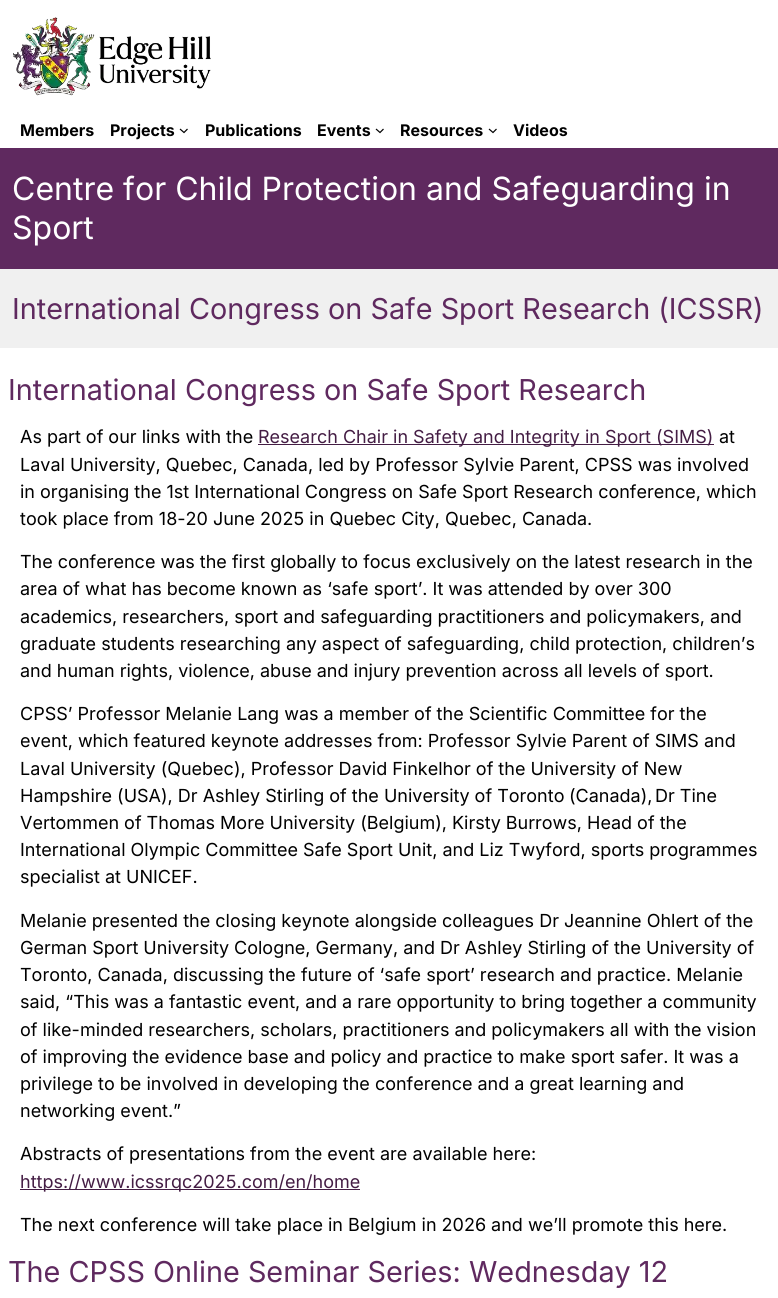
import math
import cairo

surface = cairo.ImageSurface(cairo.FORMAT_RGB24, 778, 1298)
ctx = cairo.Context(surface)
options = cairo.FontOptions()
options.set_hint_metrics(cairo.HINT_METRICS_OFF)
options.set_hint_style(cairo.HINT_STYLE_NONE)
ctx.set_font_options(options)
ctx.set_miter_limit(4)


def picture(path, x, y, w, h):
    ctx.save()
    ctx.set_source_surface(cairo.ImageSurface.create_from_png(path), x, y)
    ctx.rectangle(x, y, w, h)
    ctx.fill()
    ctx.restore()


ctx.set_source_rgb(1, 1, 1)
ctx.paint()
picture("img1.png", 13, 17, 198, 79)
ctx.select_font_face("Inter", cairo.FONT_SLANT_NORMAL, cairo.FONT_WEIGHT_BOLD)
ctx.set_font_size(16)
ctx.set_source_rgb(0, 0, 0)
ctx.move_to(20, 136)
ctx.show_text("Members")
ctx.move_to(110, 136)
ctx.show_text("Projects")
ctx.new_path()
ctx.move_to(180, 129)
ctx.line_to(184, 132.5)
ctx.line_to(187.5, 129)
ctx.set_line_width(1.2)
ctx.stroke()
ctx.move_to(205, 136)
ctx.show_text("Publications")
ctx.move_to(317, 136)
ctx.show_text("Events")
ctx.new_path()
ctx.move_to(376, 129)
ctx.line_to(380, 132.5)
ctx.line_to(383.5, 129)
ctx.stroke()
ctx.move_to(400, 136)
ctx.show_text("Resources")
ctx.new_path()
ctx.move_to(489, 129)
ctx.line_to(493, 132.5)
ctx.line_to(496.5, 129)
ctx.stroke()
ctx.move_to(513, 136)
ctx.show_text("Videos")
ctx.set_source_rgb(0.373, 0.161, 0.373)
ctx.rectangle(0, 148, 778, 121)
ctx.fill()
ctx.select_font_face("Inter")
ctx.set_font_size(32)
ctx.set_source_rgb(1, 1, 1)
ctx.move_to(12, 200)
ctx.show_text("Centre for Child Protection and Safeguarding in")
ctx.move_to(12, 239)
ctx.show_text("Sport")
ctx.set_source_rgb(0.941, 0.941, 0.941)
ctx.rectangle(0, 269, 778, 79)
ctx.fill()
ctx.set_font_size(28.8)
ctx.set_source_rgb(0.373, 0.161, 0.373)
ctx.move_to(12, 319)
ctx.show_text("International Congress on Safe Sport Research (ICSSR)")
ctx.move_to(8, 400)
ctx.show_text("International Congress on Safe Sport Research")
ctx.set_font_size(18)
ctx.set_source_rgb(0, 0, 0)
ctx.move_to(20, 443)
ctx.show_text("As part of our links with the")
ctx.set_source_rgb(0.267, 0.114, 0.267)
ctx.rectangle(258, 444, 456, 1)
ctx.fill()
ctx.move_to(258, 443)
ctx.show_text("Research Chair in Safety and Integrity in Sport (SIMS)")
ctx.set_source_rgb(0, 0, 0)
ctx.move_to(719, 443)
ctx.show_text("at")
ctx.move_to(20, 471)
ctx.show_text("Laval University, Quebec, Canada, led by Professor Sylvie Parent, CPSS was involved")
ctx.move_to(20, 498)
ctx.show_text("in organising the 1st International Congress on Safe Sport Research conference, which")
ctx.move_to(20, 525)
ctx.show_text("took place from 18-20 June 2025 in Quebec City, Quebec, Canada.")
ctx.move_to(20, 568)
ctx.show_text("The conference was the first globally to focus exclusively on the latest research in the")
ctx.move_to(20, 595)
ctx.show_text("area of what has become known as ‘safe sport’. It was attended by over 300")
ctx.move_to(20, 623)
ctx.show_text("academics, researchers, sport and safeguarding practitioners and policymakers, and")
ctx.move_to(20, 650)
ctx.show_text("graduate students researching any aspect of safeguarding, child protection, children’s")
ctx.move_to(20, 677)
ctx.show_text("and human rights, violence, abuse and injury prevention across all levels of sport.")
ctx.move_to(20, 720)
ctx.show_text("CPSS’ Professor Melanie Lang was a member of the Scientific Committee for the")
ctx.move_to(20, 747)
ctx.show_text("event, which featured keynote addresses from: Professor Sylvie Parent of SIMS and")
ctx.move_to(20, 775)
ctx.show_text("Laval University (Quebec), Professor David Finkelhor of the University of New")
ctx.move_to(20, 802)
ctx.show_text("Hampshire (USA), Dr Ashley Stirling of the University of Toronto")
ctx.move_to(569, 802)
ctx.show_text("(Canada),")
ctx.move_to(655, 802)
ctx.show_text("Dr Tine")
ctx.move_to(20, 829)
ctx.show_text("Vertommen of Thomas More University (Belgium), Kirsty Burrows, Head of the")
ctx.move_to(20, 856)
ctx.show_text("International Olympic Committee Safe Sport Unit, and Liz Twyford, sports programmes")
ctx.move_to(20, 883)
ctx.show_text("specialist at UNICEF.")
ctx.move_to(20, 927)
ctx.show_text("Melanie presented the closing keynote alongside colleagues Dr Jeannine Ohlert of the")
ctx.move_to(20, 954)
ctx.show_text("German Sport University Cologne, Germany, and Dr Ashley Stirling of the University of")
ctx.move_to(20, 981)
ctx.show_text("Toronto, Canada, discussing the future of ‘safe sport’ research and practice. Melanie")
ctx.move_to(20, 1008)
ctx.show_text("said, “This was a fantastic event, and a rare opportunity to bring together a community")
ctx.move_to(20, 1036)
ctx.show_text("of like-minded researchers, scholars, practitioners and policymakers all with the vision")
ctx.move_to(20, 1063)
ctx.show_text("of improving the evidence base and policy and practice to make sport safer. It was a")
ctx.move_to(20, 1090)
ctx.show_text("privilege to be involved in developing the conference and a great learning and")
ctx.move_to(20, 1117)
ctx.show_text("networking event.”")
ctx.move_to(20, 1160)
ctx.show_text("Abstracts of presentations from the event are available here:")
ctx.set_source_rgb(0.267, 0.114, 0.267)
ctx.rectangle(20, 1189, 340, 1)
ctx.fill()
ctx.move_to(20, 1188)
ctx.show_text("https://www.icssrqc2025.com/en/home")
ctx.set_source_rgb(0, 0, 0)
ctx.move_to(20, 1231)
ctx.show_text("The next conference will take place in Belgium in 2026 and we’ll promote this here.")
ctx.set_font_size(28.8)
ctx.set_source_rgb(0.373, 0.161, 0.373)
ctx.move_to(8, 1282)
ctx.show_text("The CPSS Online Seminar Series: Wednesday 12")
surface.write_to_png("page.png")
